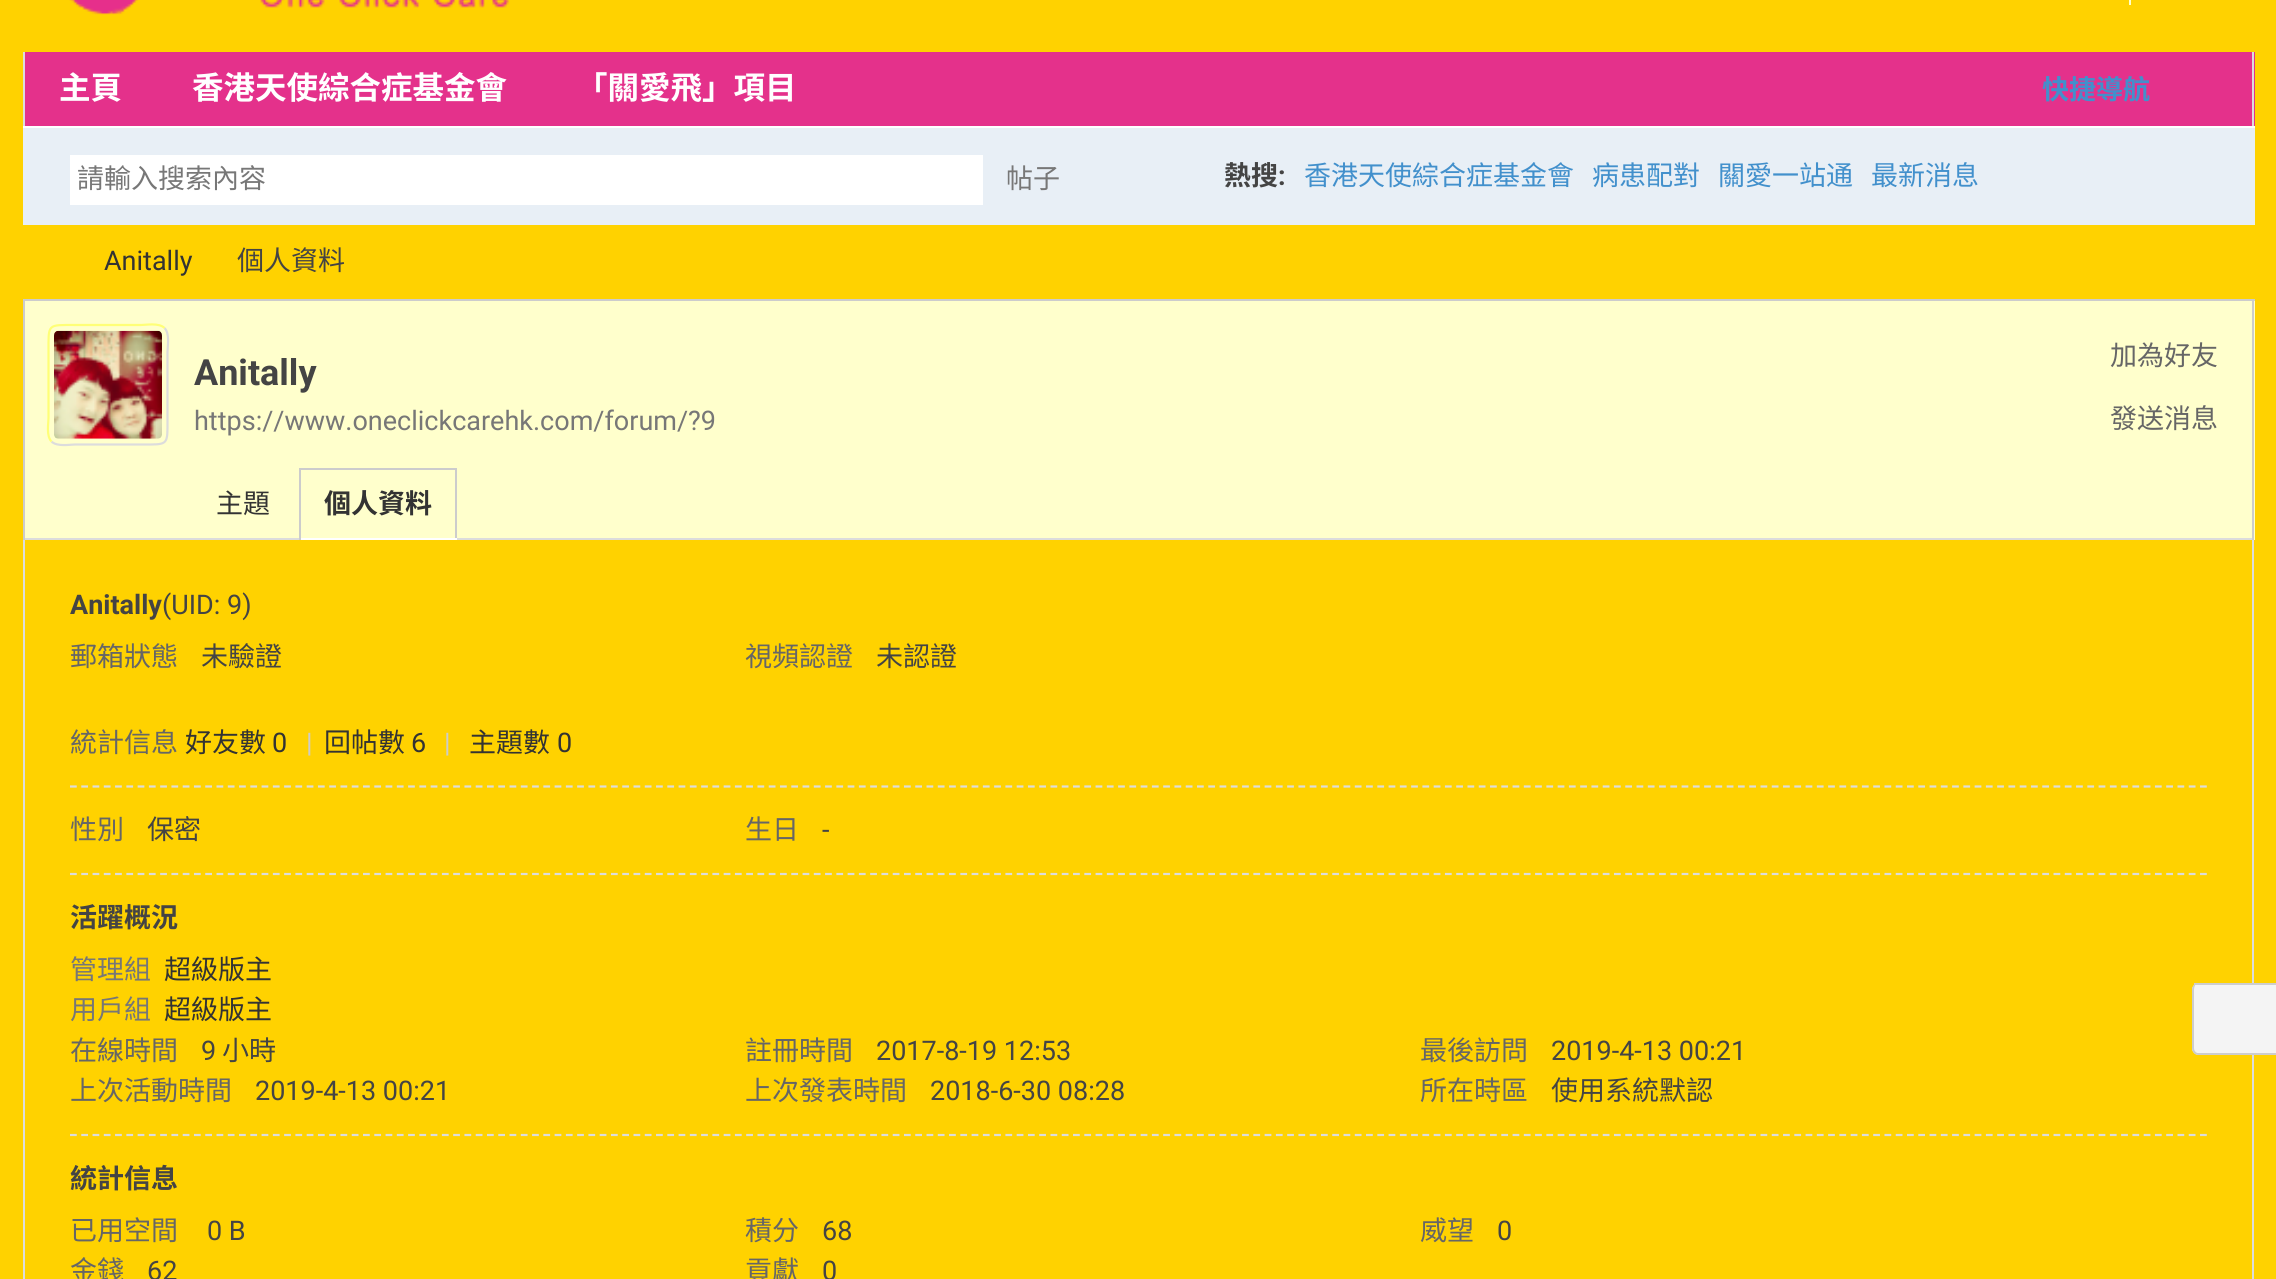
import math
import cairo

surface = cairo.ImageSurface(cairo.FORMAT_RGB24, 2276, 1279)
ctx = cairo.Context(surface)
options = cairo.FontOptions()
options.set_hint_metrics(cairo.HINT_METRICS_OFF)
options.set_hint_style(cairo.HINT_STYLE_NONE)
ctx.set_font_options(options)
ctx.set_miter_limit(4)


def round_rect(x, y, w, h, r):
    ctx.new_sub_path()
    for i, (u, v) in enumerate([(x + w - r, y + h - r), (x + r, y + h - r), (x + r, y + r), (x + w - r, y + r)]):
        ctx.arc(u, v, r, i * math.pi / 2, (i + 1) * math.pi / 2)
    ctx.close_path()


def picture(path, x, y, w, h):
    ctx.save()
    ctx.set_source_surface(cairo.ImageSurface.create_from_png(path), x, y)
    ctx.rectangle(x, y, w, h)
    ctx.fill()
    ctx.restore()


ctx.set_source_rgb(1, 0.824, 0)
ctx.paint()
picture("img1.png", 69, 0, 441, 15)
ctx.set_source_rgb(1, 1, 0.8)
ctx.rectangle(2129, 0, 2, 5)
ctx.fill()
ctx.set_source_rgb(0.894, 0.192, 0.545)
ctx.rectangle(25, 52, 2230, 74)
ctx.fill()
ctx.set_source_rgb(0.863, 0.863, 0.863)
ctx.rectangle(2252, 52, 2, 74)
ctx.fill()
ctx.rectangle(23, 52, 2, 74)
ctx.fill()
ctx.select_font_face("Noto Sans SC", cairo.FONT_SLANT_NORMAL, cairo.FONT_WEIGHT_BOLD)
ctx.set_font_size(31.5)
ctx.set_source_rgb(1, 1, 1)
ctx.move_to(59, 99)
ctx.show_text("主頁")
ctx.move_to(192, 99)
ctx.show_text("香港天使綜合症基金會")
ctx.move_to(576, 99)
ctx.show_text("「關愛飛」項目")
ctx.set_font_size(27)
ctx.set_source_rgb(0.259, 0.565, 0.8)
ctx.move_to(2042, 99)
ctx.show_text("快捷導航")
ctx.set_source_rgb(0.91, 0.937, 0.961)
ctx.rectangle(23, 128, 2232, 97)
ctx.fill()
ctx.set_source_rgb(1, 1, 1)
ctx.rectangle(23, 126, 2232, 2)
ctx.fill()
ctx.rectangle(70, 155, 913, 50)
ctx.fill()
ctx.select_font_face("Noto Sans SC")
ctx.set_source_rgb(0.467, 0.467, 0.467)
ctx.move_to(77, 188)
ctx.show_text("請輸入搜索內容")
ctx.move_to(1006, 188)
ctx.show_text("帖子")
ctx.select_font_face("Noto Sans SC", cairo.FONT_SLANT_NORMAL, cairo.FONT_WEIGHT_BOLD)
ctx.set_source_rgb(0.267, 0.267, 0.267)
ctx.move_to(1224, 185)
ctx.show_text("熱搜")
ctx.select_font_face("Roboto", cairo.FONT_SLANT_NORMAL, cairo.FONT_WEIGHT_BOLD)
ctx.move_to(1278, 185)
ctx.show_text(":")
ctx.select_font_face("Noto Sans SC")
ctx.set_source_rgb(0.259, 0.565, 0.8)
ctx.move_to(1304, 185)
ctx.show_text("香港天使綜合症基金會")
ctx.move_to(1592, 185)
ctx.show_text("病患配對")
ctx.move_to(1718, 185)
ctx.show_text("關愛一站通")
ctx.move_to(1871, 185)
ctx.show_text("最新消息")
ctx.select_font_face("Roboto")
ctx.set_source_rgb(0.2, 0.2, 0.2)
ctx.move_to(104, 270)
ctx.show_text("Anitally")
ctx.select_font_face("Noto Sans SC")
ctx.set_source_rgb(0.267, 0.267, 0.267)
ctx.move_to(237, 270)
ctx.show_text("個人資料")
ctx.set_source_rgb(1, 1, 0.8)
ctx.rectangle(25, 301, 2230, 239)
ctx.fill()
ctx.set_source_rgb(0.8, 0.8, 0.8)
ctx.rectangle(23, 299, 2232, 2)
ctx.fill()
ctx.rectangle(2252, 299, 2, 241)
ctx.fill()
ctx.rectangle(23, 299, 2, 241)
ctx.fill()
ctx.new_path()
ctx.move_to(164.5, 328)
ctx.curve_to(170, 333.5, 167.5, 346.5, 167.5, 352)
ctx.line_to(167.5, 418)
ctx.curve_to(167.5, 446, 169, 444.5, 141, 444.5)
ctx.line_to(75, 444.5)
ctx.curve_to(70, 444.5, 57, 447, 51.5, 441.5)
ctx.set_source_rgb(0.863, 0.863, 0.863)
ctx.set_line_width(2.2)
ctx.stroke()
ctx.new_path()
ctx.move_to(51.5, 441.5)
ctx.curve_to(46, 436, 48.5, 423, 48.5, 418)
ctx.line_to(48.5, 352)
ctx.curve_to(48.5, 323.5, 47, 325, 75, 325)
ctx.line_to(141, 325)
ctx.curve_to(146, 325, 159, 322.5, 164.5, 328)
ctx.set_source_rgb(1, 1, 0.467)
ctx.stroke()
picture("img2.png", 54, 330, 108, 109)
ctx.select_font_face("Roboto", cairo.FONT_SLANT_NORMAL, cairo.FONT_WEIGHT_BOLD)
ctx.set_font_size(36)
ctx.set_source_rgb(0.267, 0.267, 0.267)
ctx.move_to(194, 385)
ctx.show_text("Anitally")
ctx.select_font_face("Roboto")
ctx.set_font_size(27)
ctx.set_source_rgb(0.467, 0.467, 0.467)
ctx.move_to(194, 430)
ctx.show_text("https://www.oneclickcarehk.com/forum/?9")
ctx.select_font_face("Noto Sans SC")
ctx.set_source_rgb(0.4, 0.4, 0.4)
ctx.move_to(2110, 365)
ctx.show_text("加為好友")
ctx.move_to(2110, 428)
ctx.show_text("發送消息")
ctx.set_source_rgb(0.863, 0.863, 0.863)
ctx.rectangle(25, 538, 2227, 2)
ctx.fill()
ctx.set_source_rgb(0.2, 0.2, 0.2)
ctx.move_to(216, 513)
ctx.show_text("主題")
ctx.set_source_rgb(0.8, 0.8, 0.8)
ctx.rectangle(299, 468, 158, 2)
ctx.fill()
ctx.rectangle(455, 468, 2, 72)
ctx.fill()
ctx.set_source_rgb(1, 1, 1)
ctx.rectangle(299, 538, 158, 2)
ctx.fill()
ctx.set_source_rgb(0.8, 0.8, 0.8)
ctx.rectangle(299, 468, 2, 72)
ctx.fill()
ctx.select_font_face("Noto Sans SC", cairo.FONT_SLANT_NORMAL, cairo.FONT_WEIGHT_BOLD)
ctx.set_source_rgb(0.2, 0.2, 0.2)
ctx.move_to(324, 513)
ctx.show_text("個人資料")
ctx.set_source_rgb(0.863, 0.863, 0.863)
ctx.rectangle(2252, 540, 2, 739)
ctx.fill()
ctx.rectangle(23, 540, 2, 739)
ctx.fill()
ctx.new_path()
ctx.move_to(70, 874)
ctx.line_to(2207, 874)
ctx.set_dash([6.75, 4.52])
ctx.stroke()
ctx.select_font_face("Roboto", cairo.FONT_SLANT_NORMAL, cairo.FONT_WEIGHT_BOLD)
ctx.set_source_rgb(0.267, 0.267, 0.267)
ctx.move_to(70, 614)
ctx.show_text("Anitally")
ctx.select_font_face("Roboto")
ctx.move_to(162, 614)
ctx.show_text("(UID: 9)")
ctx.select_font_face("Noto Sans SC")
ctx.set_source_rgb(0.4, 0.4, 0.4)
ctx.move_to(70, 666)
ctx.show_text("郵箱狀態")
ctx.set_source_rgb(0.267, 0.267, 0.267)
ctx.move_to(201, 666)
ctx.show_text("未驗證")
ctx.set_source_rgb(0.4, 0.4, 0.4)
ctx.move_to(745, 666)
ctx.show_text("視頻認證")
ctx.set_source_rgb(0.267, 0.267, 0.267)
ctx.move_to(876, 666)
ctx.show_text("未認證")
ctx.new_path()
ctx.move_to(70, 786.5)
ctx.line_to(2207, 786.5)
ctx.set_source_rgb(0.863, 0.863, 0.863)
ctx.stroke()
ctx.set_source_rgb(0.4, 0.4, 0.4)
ctx.move_to(70, 752)
ctx.show_text("統計信息")
ctx.set_source_rgb(0.2, 0.2, 0.2)
ctx.move_to(185, 752)
ctx.show_text("好友數")
ctx.select_font_face("Roboto")
ctx.move_to(272, 752)
ctx.show_text("0")
ctx.set_source_rgb(0.8, 0.8, 0.8)
ctx.move_to(306, 752)
ctx.show_text("|")
ctx.select_font_face("Noto Sans SC")
ctx.set_source_rgb(0.2, 0.2, 0.2)
ctx.move_to(324, 752)
ctx.show_text("回帖數")
ctx.select_font_face("Roboto")
ctx.move_to(411, 752)
ctx.show_text("6")
ctx.set_source_rgb(0.8, 0.8, 0.8)
ctx.move_to(444, 752)
ctx.show_text("|")
ctx.select_font_face("Noto Sans SC")
ctx.set_source_rgb(0.2, 0.2, 0.2)
ctx.move_to(469, 752)
ctx.show_text("主題數")
ctx.select_font_face("Roboto")
ctx.move_to(557, 752)
ctx.show_text("0")
ctx.select_font_face("Noto Sans SC")
ctx.set_source_rgb(0.4, 0.4, 0.4)
ctx.move_to(70, 839)
ctx.show_text("性別")
ctx.set_source_rgb(0.267, 0.267, 0.267)
ctx.move_to(147, 839)
ctx.show_text("保密")
ctx.set_source_rgb(0.4, 0.4, 0.4)
ctx.move_to(745, 839)
ctx.show_text("生日")
ctx.select_font_face("Roboto")
ctx.set_source_rgb(0.267, 0.267, 0.267)
ctx.move_to(822, 839)
ctx.show_text("-")
ctx.new_path()
ctx.move_to(70, 1135)
ctx.line_to(2207, 1135)
ctx.set_source_rgb(0.863, 0.863, 0.863)
ctx.stroke()
ctx.select_font_face("Noto Sans SC", cairo.FONT_SLANT_NORMAL, cairo.FONT_WEIGHT_BOLD)
ctx.set_source_rgb(0.267, 0.267, 0.267)
ctx.move_to(70, 927)
ctx.show_text("活躍概況")
ctx.select_font_face("Noto Sans SC")
ctx.set_source_rgb(0.467, 0.467, 0.467)
ctx.move_to(70, 979)
ctx.show_text("管理組")
ctx.set_source_rgb(0.2, 0.2, 0.2)
ctx.move_to(164, 979)
ctx.show_text("超級版主")
ctx.set_source_rgb(0.467, 0.467, 0.467)
ctx.move_to(70, 1019)
ctx.show_text("用戶組")
ctx.set_source_rgb(0.2, 0.2, 0.2)
ctx.move_to(164, 1019)
ctx.show_text("超級版主")
ctx.set_source_rgb(0.4, 0.4, 0.4)
ctx.move_to(70, 1060)
ctx.show_text("在線時間")
ctx.select_font_face("Roboto")
ctx.set_source_rgb(0.267, 0.267, 0.267)
ctx.move_to(201, 1060)
ctx.show_text("9")
ctx.select_font_face("Noto Sans SC")
ctx.move_to(222, 1060)
ctx.show_text("小時")
ctx.set_source_rgb(0.4, 0.4, 0.4)
ctx.move_to(745, 1060)
ctx.show_text("註冊時間")
ctx.select_font_face("Roboto")
ctx.set_source_rgb(0.267, 0.267, 0.267)
ctx.move_to(876, 1060)
ctx.show_text("2017-8-19 12:53")
ctx.select_font_face("Noto Sans SC")
ctx.set_source_rgb(0.4, 0.4, 0.4)
ctx.move_to(1420, 1060)
ctx.show_text("最後訪問")
ctx.select_font_face("Roboto")
ctx.set_source_rgb(0.267, 0.267, 0.267)
ctx.move_to(1551, 1060)
ctx.show_text("2019-4-13 00:21")
ctx.select_font_face("Noto Sans SC")
ctx.set_source_rgb(0.4, 0.4, 0.4)
ctx.move_to(70, 1100)
ctx.show_text("上次活動時間")
ctx.select_font_face("Roboto")
ctx.set_source_rgb(0.267, 0.267, 0.267)
ctx.move_to(255, 1100)
ctx.show_text("2019-4-13 00:21")
ctx.select_font_face("Noto Sans SC")
ctx.set_source_rgb(0.4, 0.4, 0.4)
ctx.move_to(745, 1100)
ctx.show_text("上次發表時間")
ctx.select_font_face("Roboto")
ctx.set_source_rgb(0.267, 0.267, 0.267)
ctx.move_to(930, 1100)
ctx.show_text("2018-6-30 08:28")
ctx.select_font_face("Noto Sans SC")
ctx.set_source_rgb(0.4, 0.4, 0.4)
ctx.move_to(1420, 1100)
ctx.show_text("所在時區")
ctx.set_source_rgb(0.267, 0.267, 0.267)
ctx.move_to(1551, 1100)
ctx.show_text("使用系統默認")
ctx.select_font_face("Noto Sans SC", cairo.FONT_SLANT_NORMAL, cairo.FONT_WEIGHT_BOLD)
ctx.move_to(70, 1188)
ctx.show_text("統計信息")
ctx.select_font_face("Noto Sans SC")
ctx.set_source_rgb(0.4, 0.4, 0.4)
ctx.move_to(70, 1240)
ctx.show_text("已用空間")
ctx.select_font_face("Roboto")
ctx.set_source_rgb(0.267, 0.267, 0.267)
ctx.move_to(207, 1240)
ctx.show_text("0 B")
ctx.select_font_face("Noto Sans SC")
ctx.set_source_rgb(0.4, 0.4, 0.4)
ctx.move_to(745, 1240)
ctx.show_text("積分")
ctx.select_font_face("Roboto")
ctx.set_source_rgb(0.267, 0.267, 0.267)
ctx.move_to(822, 1240)
ctx.show_text("68")
ctx.select_font_face("Noto Sans SC")
ctx.set_source_rgb(0.4, 0.4, 0.4)
ctx.move_to(1420, 1240)
ctx.show_text("威望")
ctx.select_font_face("Roboto")
ctx.set_source_rgb(0.267, 0.267, 0.267)
ctx.move_to(1497, 1240)
ctx.show_text("0")
ctx.select_font_face("Noto Sans SC")
ctx.set_source_rgb(0.4, 0.4, 0.4)
ctx.move_to(70, 1280)
ctx.show_text("金錢")
ctx.select_font_face("Roboto")
ctx.set_source_rgb(0.267, 0.267, 0.267)
ctx.move_to(147, 1280)
ctx.show_text("62")
ctx.select_font_face("Noto Sans SC")
ctx.set_source_rgb(0.4, 0.4, 0.4)
ctx.move_to(745, 1280)
ctx.show_text("貢獻")
ctx.select_font_face("Roboto")
ctx.set_source_rgb(0.267, 0.267, 0.267)
ctx.move_to(822, 1280)
ctx.show_text("0")
ctx.set_source_rgb(0.957, 0.957, 0.957)
round_rect(2192, 983, 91, 72, 7)
ctx.fill()
ctx.set_source_rgb(0.804, 0.804, 0.804)
ctx.set_fill_rule(cairo.FILL_RULE_EVEN_ODD)
ctx.new_path()
ctx.move_to(2198, 983)
ctx.line_to(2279, 983)
ctx.curve_to(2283, 983, 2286, 986, 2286, 990)
ctx.line_to(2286, 1048)
ctx.curve_to(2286, 1052, 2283, 1055, 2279, 1055)
ctx.line_to(2198, 1055)
ctx.curve_to(2195, 1055, 2192, 1052, 2192, 1048)
ctx.line_to(2192, 990)
ctx.curve_to(2192, 986, 2195, 983, 2198, 983)
ctx.close_path()
ctx.move_to(2198, 983)
ctx.line_to(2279, 983)
ctx.curve_to(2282, 983, 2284, 986, 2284, 990)
ctx.line_to(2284, 1048)
ctx.curve_to(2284, 1051, 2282, 1053, 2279, 1053)
ctx.line_to(2198, 1053)
ctx.curve_to(2196, 1053, 2194, 1051, 2194, 1048)
ctx.line_to(2194, 990)
ctx.curve_to(2194, 986, 2196, 983, 2198, 983)
ctx.close_path()
ctx.fill()
ctx.rectangle(2194, 983, 82, 2)
ctx.fill()
surface.write_to_png("page.png")
